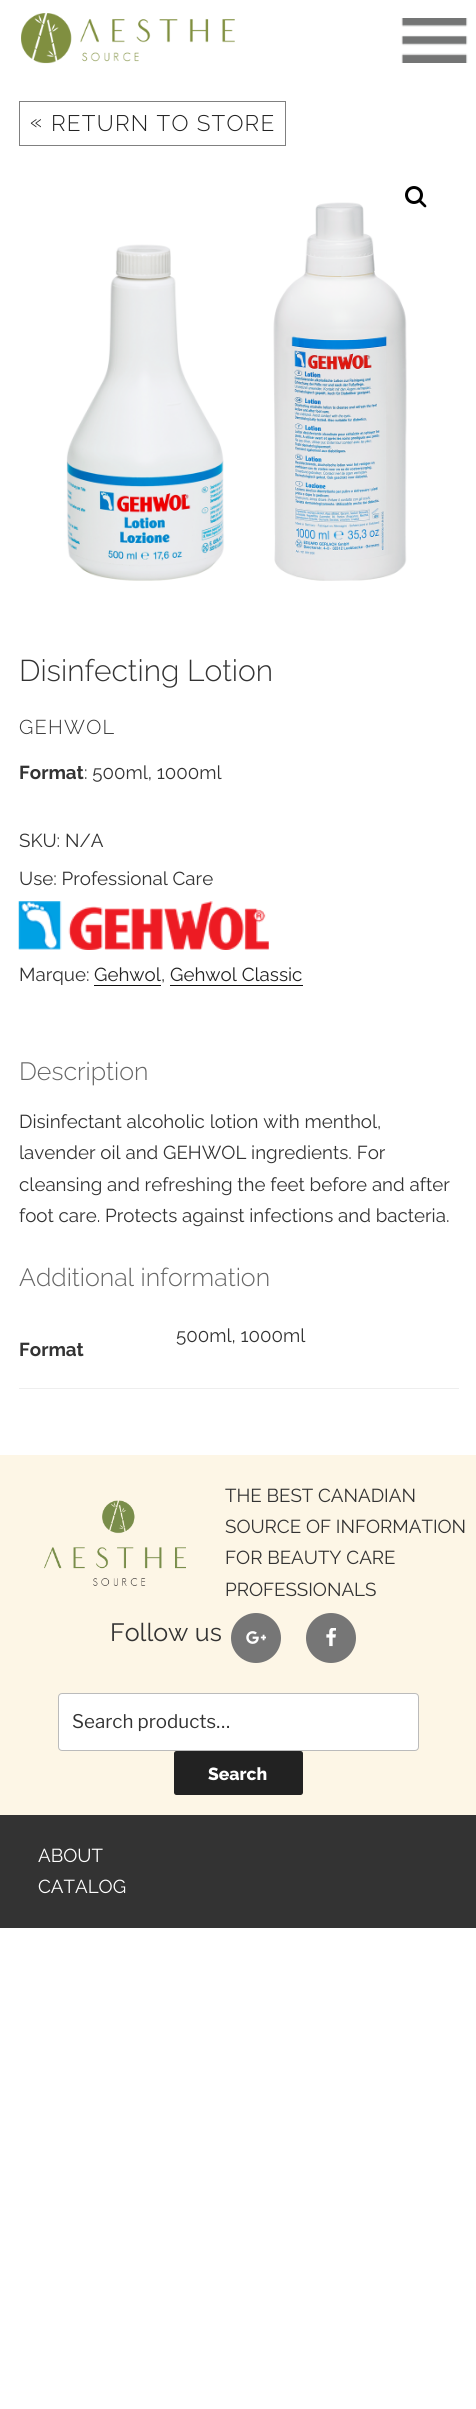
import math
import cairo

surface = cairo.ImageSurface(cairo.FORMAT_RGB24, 476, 2409)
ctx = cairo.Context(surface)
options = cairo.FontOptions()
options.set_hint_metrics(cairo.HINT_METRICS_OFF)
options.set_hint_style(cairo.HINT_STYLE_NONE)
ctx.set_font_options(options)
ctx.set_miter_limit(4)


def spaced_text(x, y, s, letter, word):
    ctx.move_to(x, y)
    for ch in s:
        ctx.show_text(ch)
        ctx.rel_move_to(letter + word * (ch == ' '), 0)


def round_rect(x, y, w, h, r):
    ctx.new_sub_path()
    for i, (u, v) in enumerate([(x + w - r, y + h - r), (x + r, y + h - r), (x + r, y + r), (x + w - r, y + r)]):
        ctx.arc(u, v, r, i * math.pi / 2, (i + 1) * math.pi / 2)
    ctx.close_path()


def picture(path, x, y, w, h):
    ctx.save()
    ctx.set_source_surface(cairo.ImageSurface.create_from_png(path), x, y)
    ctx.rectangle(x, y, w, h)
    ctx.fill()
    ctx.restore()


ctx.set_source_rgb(1, 1, 1)
ctx.paint()
picture("img1.png", 21, 13, 214, 51)
picture("img2.png", 401, 18, 67, 45)
ctx.rectangle(19.5, 101.5, 266, 44)
ctx.set_source_rgb(0.502, 0.502, 0.502)
ctx.set_line_width(1)
ctx.stroke()
ctx.select_font_face("Raleway Light")
ctx.set_font_size(22.5)
ctx.set_source_rgb(0.133, 0.133, 0.133)
spaced_text(30, 129, "«", 1.25, 0)
spaced_text(51, 131, "RETURN TO STORE", 1.25, 0)
picture("img3.png", 66, 202, 341, 379)
ctx.arc(414, 195, 7.5, 0, 2 * math.pi)
ctx.set_source_rgb(0, 0, 0)
ctx.set_line_width(3)
ctx.stroke()
ctx.new_path()
ctx.move_to(419, 200)
ctx.curve_to(420.5, 198.5, 422.5, 202, 423.5, 202.5)
ctx.curve_to(424, 203.5, 427.5, 205.5, 426, 207)
ctx.curve_to(424.5, 208.5, 422.5, 205, 421.5, 204.5)
ctx.curve_to(421, 203.5, 417.5, 201.5, 419, 200)
ctx.close_path()
ctx.fill()
ctx.set_font_size(30)
ctx.set_source_rgb(0.2, 0.2, 0.2)
ctx.move_to(19, 681)
ctx.show_text("Disinfecting Lotion")
ctx.set_font_size(20)
spaced_text(19, 734, "GEHWOL", 1.25, 0)
ctx.select_font_face("Raleway", cairo.FONT_SLANT_NORMAL, cairo.FONT_WEIGHT_BOLD)
ctx.set_font_size(18.75)
ctx.move_to(19, 779)
ctx.show_text("Format")
ctx.select_font_face("Raleway")
ctx.move_to(84, 779)
ctx.show_text(": 500ml, 1000ml")
ctx.move_to(19, 847)
ctx.show_text("SKU: N/A")
ctx.move_to(19, 885)
ctx.show_text("Use: Professional Care")
picture("img4.png", 18, 901, 251, 49)
ctx.move_to(19, 981)
ctx.show_text("Marque:")
ctx.set_source_rgb(0.133, 0.133, 0.133)
ctx.move_to(94, 981)
ctx.show_text("Gehwol")
ctx.set_source_rgb(0.059, 0.059, 0.059)
ctx.rectangle(94, 985, 67, 1)
ctx.fill()
ctx.set_source_rgb(0.2, 0.2, 0.2)
ctx.move_to(161, 981)
ctx.show_text(",")
ctx.set_source_rgb(0.133, 0.133, 0.133)
ctx.move_to(170, 981)
ctx.show_text("Gehwol Classic")
ctx.set_source_rgb(0.059, 0.059, 0.059)
ctx.rectangle(170, 985, 133, 1)
ctx.fill()
ctx.select_font_face("Raleway Light")
ctx.set_font_size(25)
ctx.set_source_rgb(0.4, 0.4, 0.4)
ctx.move_to(19, 1080)
ctx.show_text("Description")
ctx.select_font_face("Raleway")
ctx.set_font_size(18.75)
ctx.set_source_rgb(0.2, 0.2, 0.2)
ctx.move_to(19, 1128)
ctx.show_text("Disinfectant alcoholic lotion with menthol,")
ctx.move_to(19, 1159)
ctx.show_text("lavender oil and GEHWOL ingredients. For")
ctx.move_to(19, 1191)
ctx.show_text("cleansing and refreshing the feet before and after")
ctx.move_to(19, 1222)
ctx.show_text("foot care. Protects against infections and bacteria.")
ctx.select_font_face("Raleway Light")
ctx.set_font_size(25)
ctx.set_source_rgb(0.4, 0.4, 0.4)
ctx.move_to(19, 1286)
ctx.show_text("Additional information")
ctx.set_source_rgb(0.933, 0.933, 0.933)
ctx.rectangle(19, 1388, 440, 1)
ctx.fill()
ctx.select_font_face("Raleway")
ctx.set_font_size(18.75)
ctx.set_source_rgb(0.2, 0.2, 0.2)
ctx.move_to(176, 1342)
ctx.show_text("500ml, 1000ml")
ctx.select_font_face("Raleway", cairo.FONT_SLANT_NORMAL, cairo.FONT_WEIGHT_BOLD)
ctx.move_to(19, 1356)
ctx.show_text("Format")
ctx.rectangle(0, 1815, 476, 113)
ctx.fill()
ctx.set_source_rgb(0.992, 0.961, 0.902)
ctx.rectangle(0, 1455, 476, 360)
ctx.fill()
picture("img5.png", 44, 1500, 142, 86)
ctx.select_font_face("Raleway")
ctx.set_source_rgb(0.2, 0.2, 0.2)
ctx.move_to(225, 1502)
ctx.show_text("THE BEST CANADIAN")
ctx.move_to(225, 1533)
ctx.show_text("SOURCE OF INFORMATION")
ctx.move_to(225, 1564)
ctx.show_text("FOR BEAUTY CARE")
ctx.move_to(225, 1596)
ctx.show_text("PROFESSIONALS")
ctx.set_font_size(25)
ctx.move_to(110, 1641)
ctx.show_text("Follow us")
ctx.set_source_rgb(0.463, 0.463, 0.463)
ctx.new_path()
ctx.arc(256, 1638, 25, 0, 2 * math.pi)
ctx.fill()
picture("img6.png", 246, 1631, 20, 13)
ctx.arc(331, 1638, 25, 0, 2 * math.pi)
ctx.fill()
picture("img7.png", 326, 1628, 10, 19)
ctx.set_source_rgb(1, 1, 1)
round_rect(58.5, 1693.5, 360, 57, 3.5)
ctx.fill_preserve()
ctx.set_source_rgb(0.733, 0.733, 0.733)
ctx.set_line_width(1)
ctx.stroke()
ctx.select_font_face("Libre Franklin Thin")
ctx.set_font_size(18.75)
ctx.set_source_rgb(0.2, 0.2, 0.2)
ctx.move_to(72, 1728)
ctx.show_text("Search products…")
ctx.set_source_rgb(0.133, 0.133, 0.133)
round_rect(174, 1751, 129, 44, 2.5)
ctx.fill()
ctx.select_font_face("Raleway ExtraBold")
ctx.set_font_size(17.5)
ctx.set_source_rgb(1, 1, 1)
ctx.move_to(208, 1780)
ctx.show_text("Search")
ctx.select_font_face("Raleway")
ctx.set_font_size(18.75)
ctx.move_to(38, 1862)
ctx.show_text("ABOUT")
ctx.move_to(38, 1893)
ctx.show_text("CATALOG")
surface.write_to_png("page.png")
